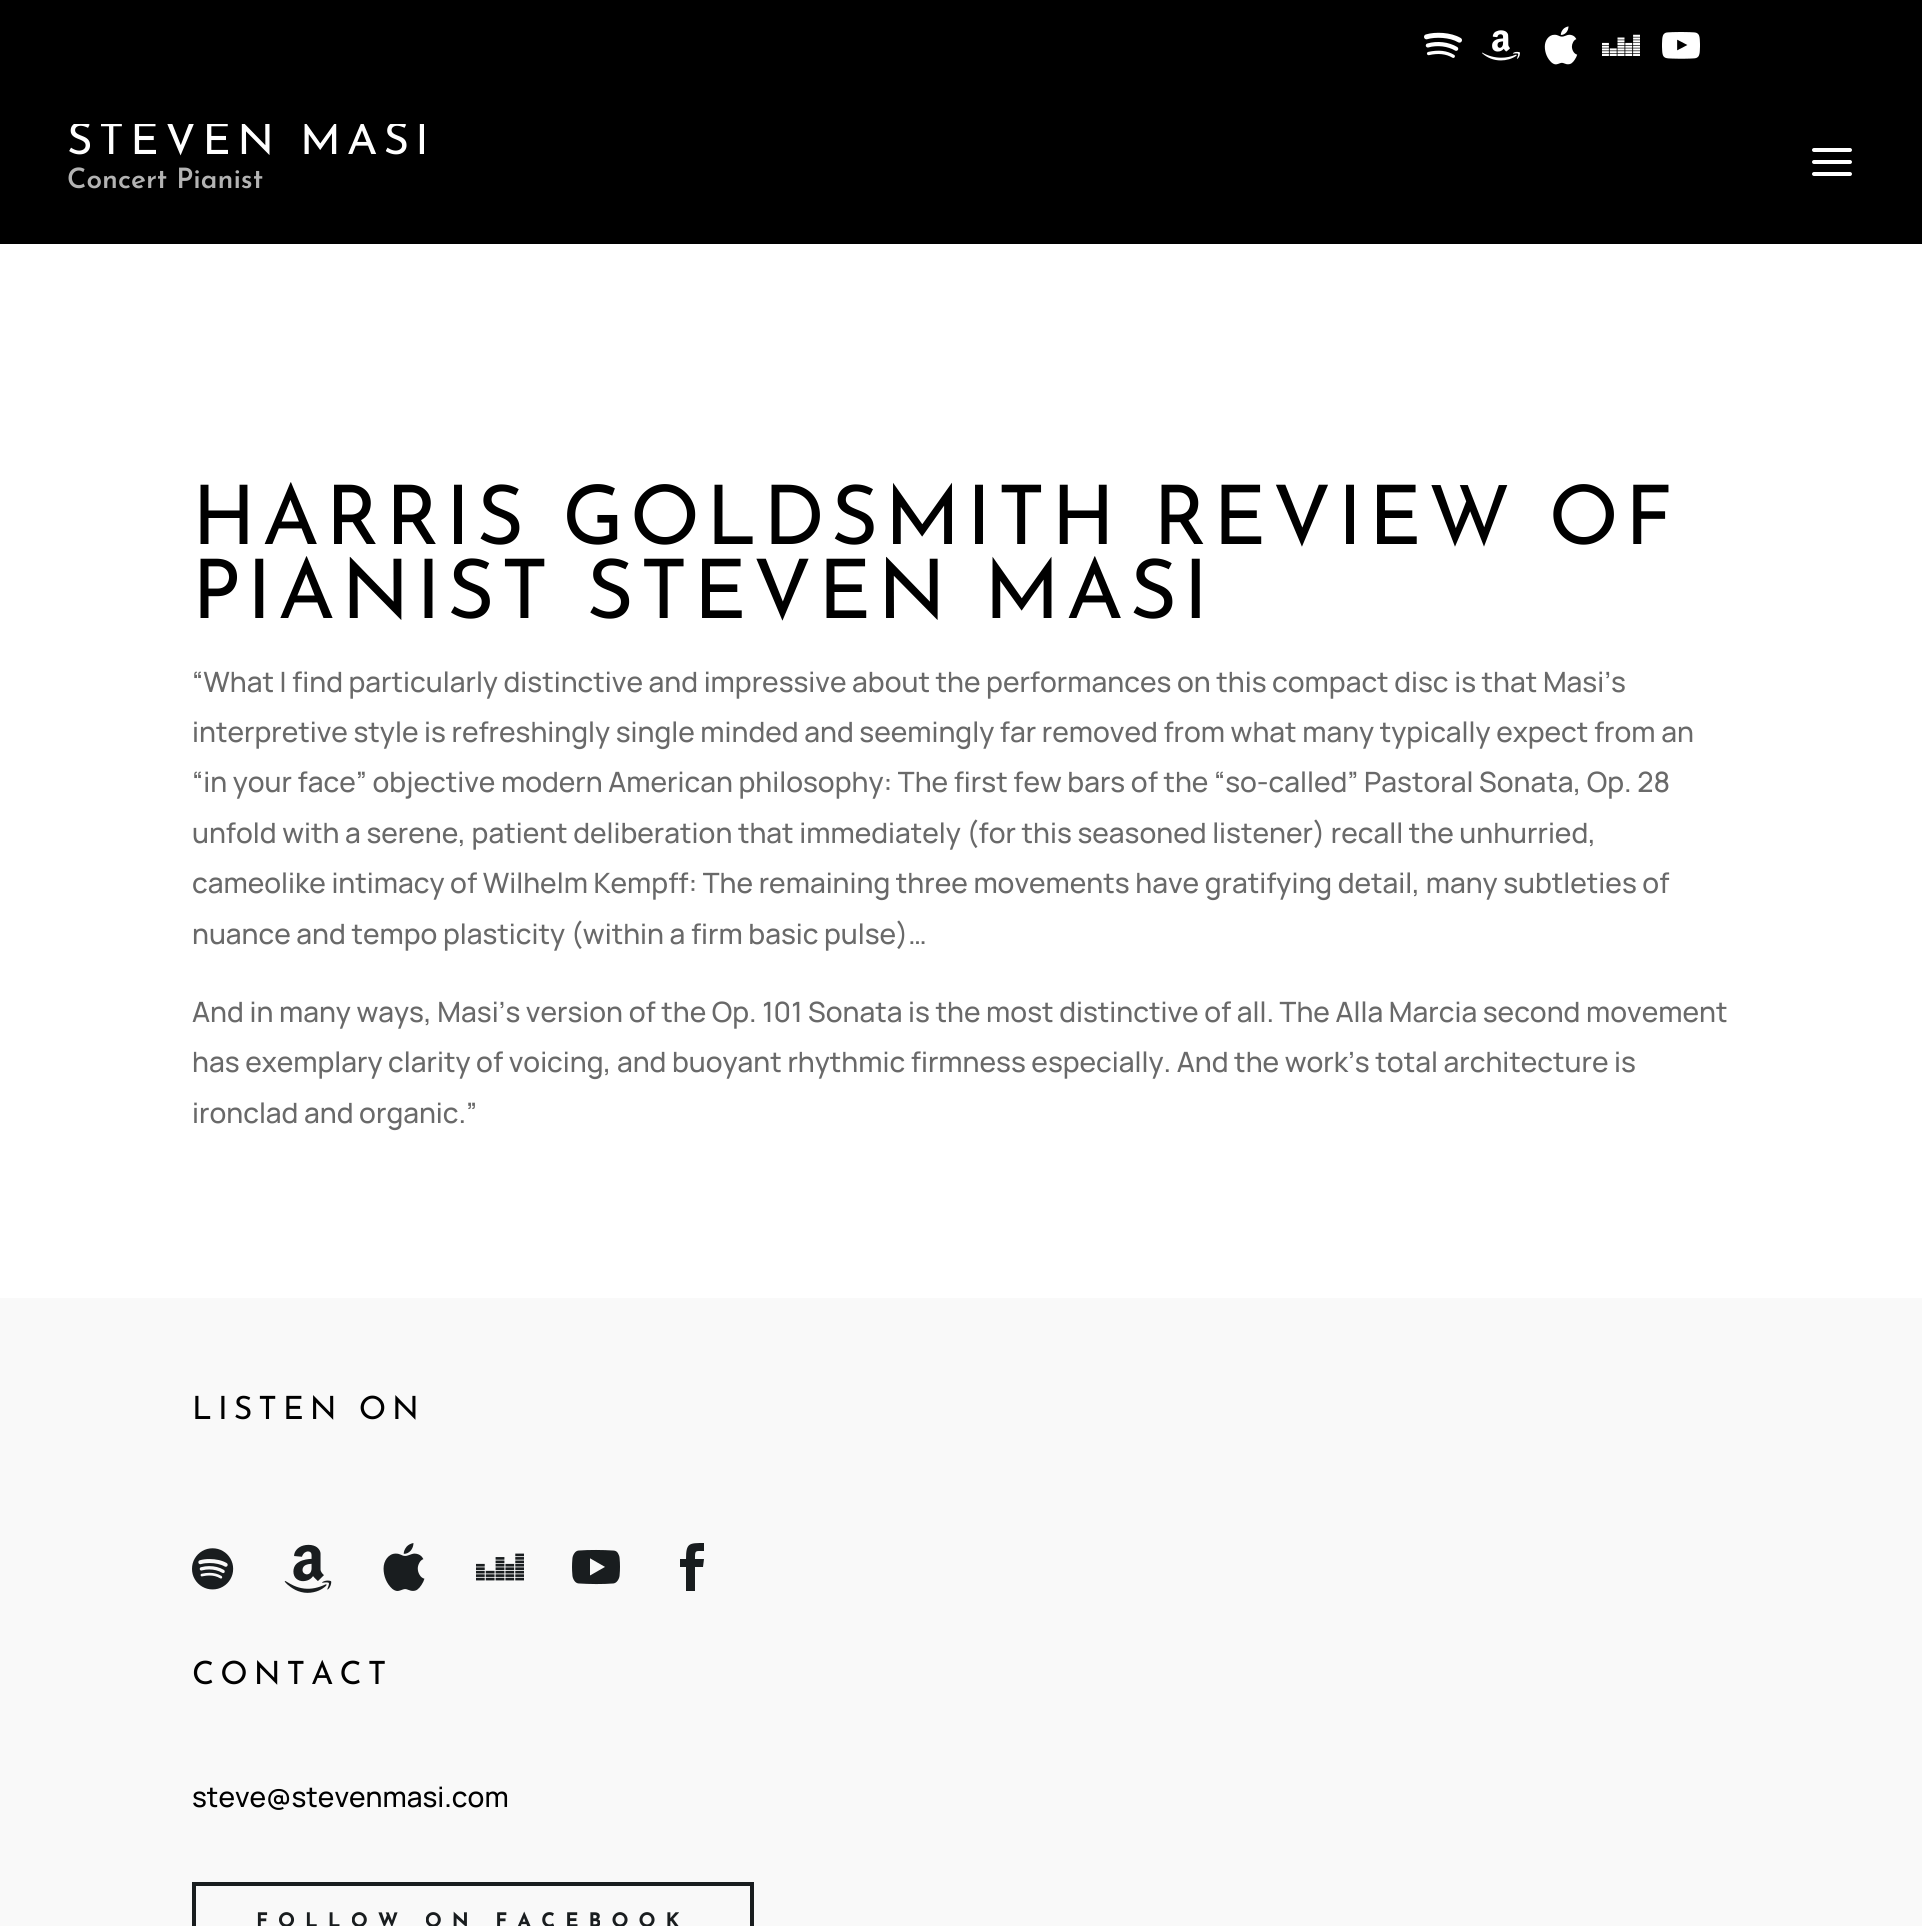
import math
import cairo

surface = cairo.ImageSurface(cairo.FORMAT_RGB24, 1922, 1926)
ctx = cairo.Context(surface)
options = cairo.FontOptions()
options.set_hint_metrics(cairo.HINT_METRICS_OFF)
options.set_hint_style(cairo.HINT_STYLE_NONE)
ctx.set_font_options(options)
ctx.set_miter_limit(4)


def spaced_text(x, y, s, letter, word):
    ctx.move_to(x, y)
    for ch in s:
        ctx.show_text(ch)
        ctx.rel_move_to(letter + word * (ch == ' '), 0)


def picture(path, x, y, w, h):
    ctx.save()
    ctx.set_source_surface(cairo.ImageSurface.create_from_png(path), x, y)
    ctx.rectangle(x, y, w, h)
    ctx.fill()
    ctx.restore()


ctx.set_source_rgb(1, 1, 1)
ctx.paint()
ctx.set_source_rgb(0, 0, 0)
ctx.rectangle(0, 0, 1922, 244)
ctx.fill()
picture("img1.png", 1424, 32, 38, 26)
picture("img2.png", 1482, 30, 38, 31)
picture("img3.png", 1544, 26, 34, 39)
picture("img4.png", 1602, 34, 38, 22)
picture("img5.png", 1662, 32, 38, 27)
ctx.save()
ctx.rectangle(66, 124, 368, 80)
ctx.clip()
ctx.select_font_face("Josefin Sans")
ctx.set_font_size(44)
ctx.set_source_rgb(1, 1, 1)
spaced_text(67, 154, "STEVEN MASI", 6, 0)
ctx.restore()
ctx.select_font_face("Josefin Sans SemiBold")
ctx.set_font_size(28)
ctx.set_source_rgb(0.702, 0.702, 0.702)
ctx.move_to(67, 188)
ctx.show_text("Concert Pianist")
picture("img6.png", 1812, 148, 40, 28)
ctx.select_font_face("Josefin Sans")
ctx.set_font_size(82)
ctx.set_source_rgb(0, 0, 0)
spaced_text(192, 544, "HARRIS GOLDSMITH REVIEW OF", 6, 0)
spaced_text(192, 618, "PIANIST STEVEN MASI", 6, 0)
ctx.select_font_face("Manrope Medium")
ctx.set_font_size(28)
ctx.set_source_rgb(0.412, 0.412, 0.412)
ctx.move_to(192, 692)
ctx.show_text("“What I find particularly distinctive and impressive about the performances on this compact disc is that Masi’s")
ctx.move_to(192, 742)
ctx.show_text("interpretive style is refreshingly single minded and seemingly far removed from what many typically expect from an")
ctx.move_to(192, 792)
ctx.show_text("“in your face” objective modern American philosophy: The first few bars of the “so-called” Pastoral Sonata, Op. 28")
ctx.move_to(192, 843)
ctx.show_text("unfold with a serene, patient deliberation that immediately (for this seasoned listener) recall the unhurried,")
ctx.move_to(192, 893)
ctx.show_text("cameolike intimacy of Wilhelm Kempff: The remaining three movements have gratifying detail, many subtleties of")
ctx.move_to(192, 944)
ctx.show_text("nuance and tempo plasticity (within a firm basic pulse)…")
ctx.move_to(192, 1022)
ctx.show_text("And in many ways, Masi’s version of the Op. 101 Sonata is the most distinctive of all. The Alla Marcia second movement")
ctx.move_to(192, 1072)
ctx.show_text("has exemplary clarity of voicing, and buoyant rhythmic firmness especially. And the work’s total architecture is")
ctx.move_to(192, 1123)
ctx.show_text("ironclad and organic.”")
ctx.set_source_rgb(0.976, 0.976, 0.976)
ctx.rectangle(0, 1298, 1922, 628)
ctx.fill()
ctx.select_font_face("Josefin Sans")
ctx.set_font_size(32)
ctx.set_source_rgb(0, 0, 0)
spaced_text(192, 1419, "LISTEN ON", 6, 0)
picture("img7.png", 192, 1548, 42, 42)
picture("img8.png", 284, 1544, 48, 49)
picture("img9.png", 383, 1543, 42, 48)
picture("img10.png", 476, 1553, 48, 28)
picture("img11.png", 572, 1549, 48, 36)
ctx.set_source_rgb(0.098, 0.114, 0.122)
ctx.new_path()
ctx.move_to(686, 1591)
ctx.line_to(695, 1591)
ctx.line_to(695, 1567)
ctx.line_to(703, 1567)
ctx.line_to(704, 1559)
ctx.line_to(695, 1559)
ctx.curve_to(695, 1550, 695, 1551, 704, 1551)
ctx.line_to(704, 1543)
ctx.curve_to(689, 1543, 686, 1543, 686, 1559)
ctx.line_to(680, 1559)
ctx.line_to(680, 1567)
ctx.line_to(686, 1567)
ctx.close_path()
ctx.fill()
ctx.set_source_rgb(0, 0, 0)
spaced_text(192, 1684, "CONTACT", 6, 0)
ctx.select_font_face("Manrope Medium")
ctx.set_font_size(28)
ctx.move_to(192, 1807)
ctx.show_text("steve@stevenmasi.com")
ctx.rectangle(194, 1884, 558, 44)
ctx.set_source_rgb(0.098, 0.114, 0.122)
ctx.set_line_width(4)
ctx.stroke()
ctx.select_font_face("Josefin Sans", cairo.FONT_SLANT_NORMAL, cairo.FONT_WEIGHT_BOLD)
ctx.set_font_size(20)
spaced_text(256, 1927, "FOLLOW ON FACEBOOK", 10, 0)
surface.write_to_png("page.png")
